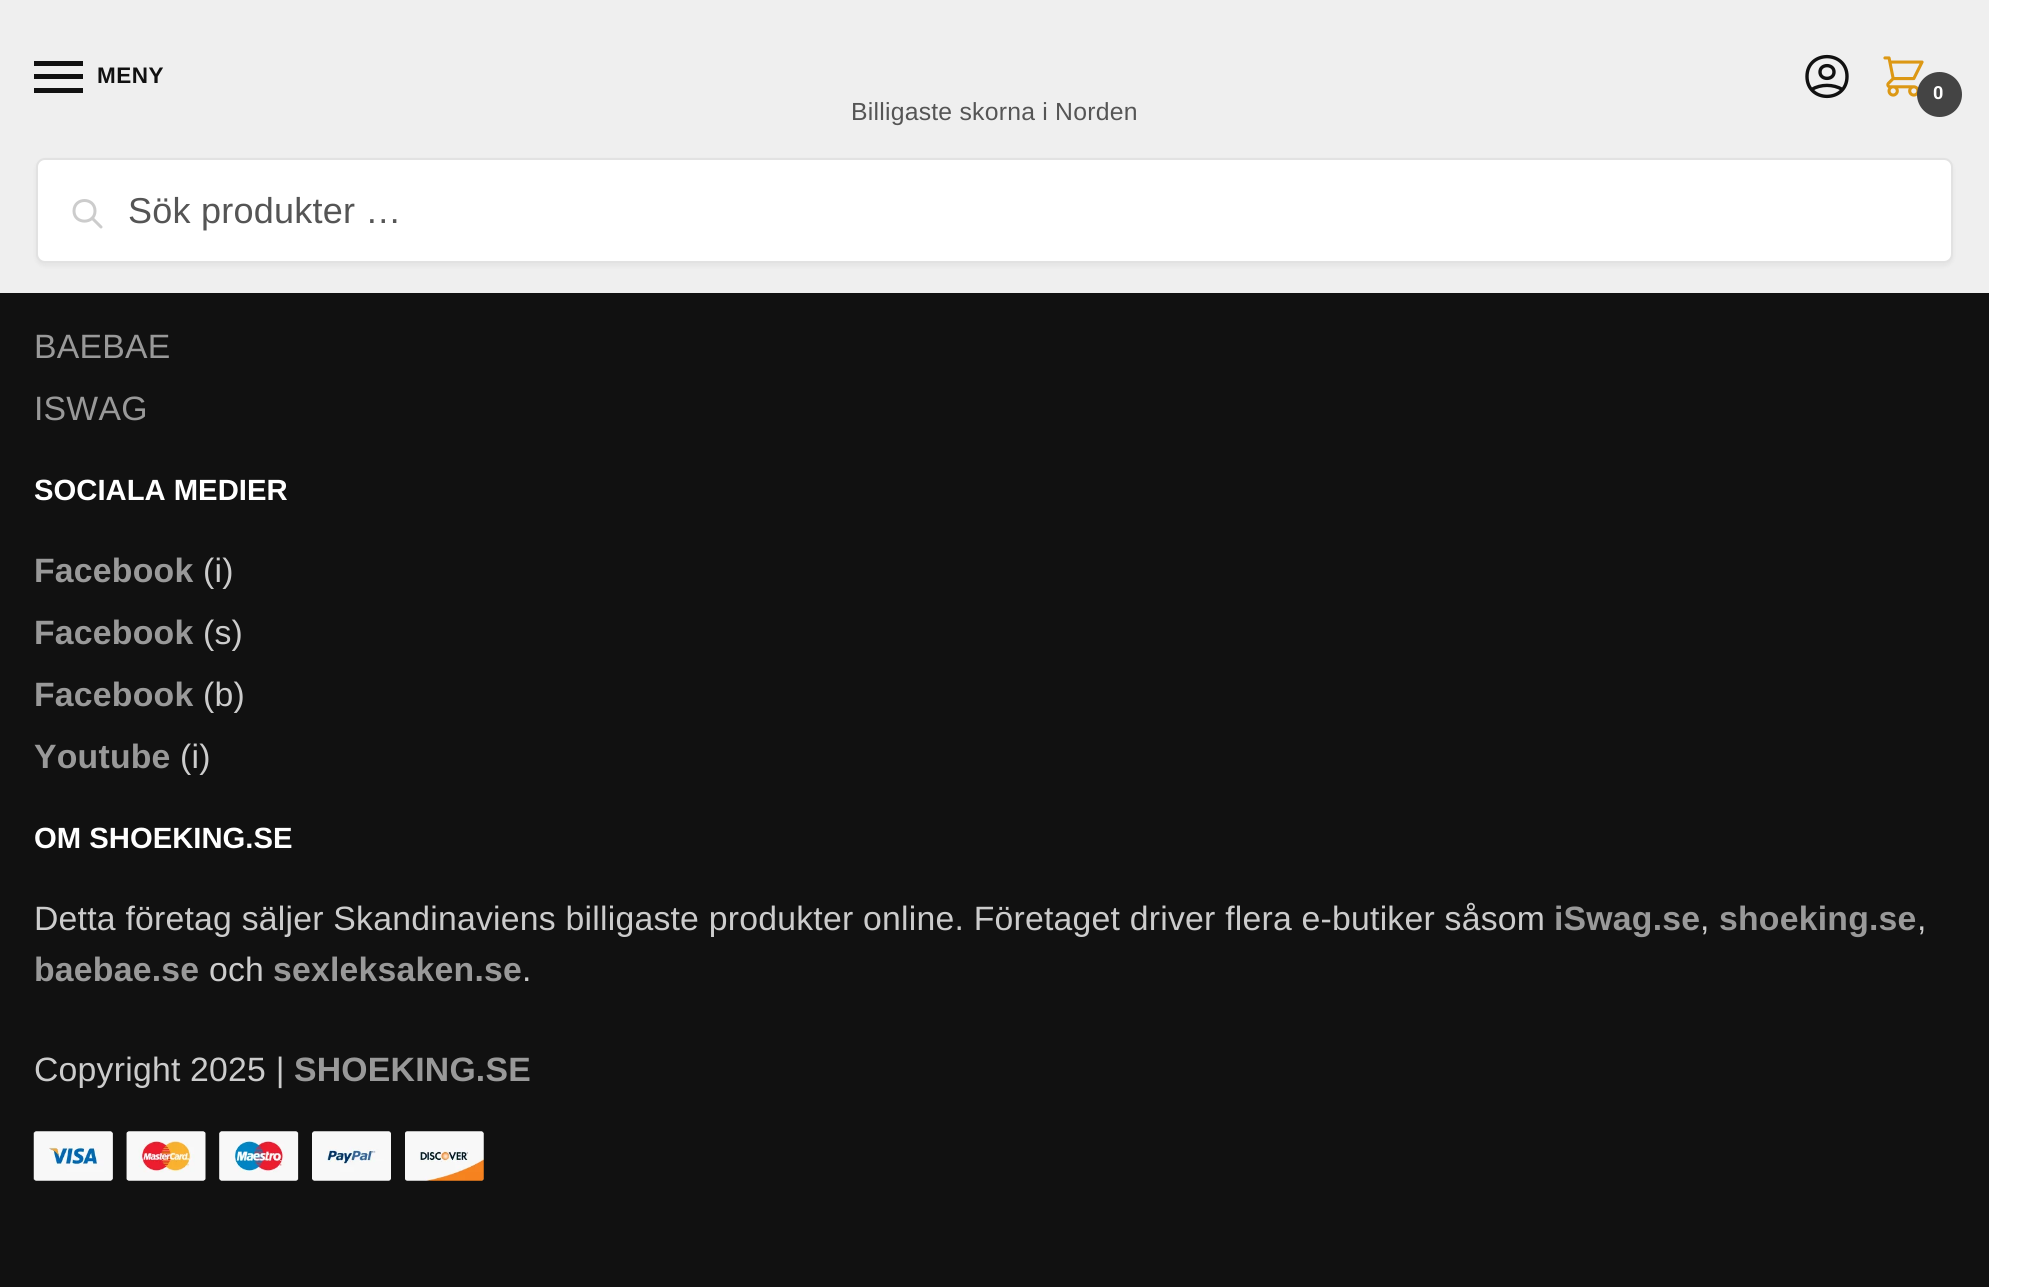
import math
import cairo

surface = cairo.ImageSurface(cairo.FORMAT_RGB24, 2021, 1287)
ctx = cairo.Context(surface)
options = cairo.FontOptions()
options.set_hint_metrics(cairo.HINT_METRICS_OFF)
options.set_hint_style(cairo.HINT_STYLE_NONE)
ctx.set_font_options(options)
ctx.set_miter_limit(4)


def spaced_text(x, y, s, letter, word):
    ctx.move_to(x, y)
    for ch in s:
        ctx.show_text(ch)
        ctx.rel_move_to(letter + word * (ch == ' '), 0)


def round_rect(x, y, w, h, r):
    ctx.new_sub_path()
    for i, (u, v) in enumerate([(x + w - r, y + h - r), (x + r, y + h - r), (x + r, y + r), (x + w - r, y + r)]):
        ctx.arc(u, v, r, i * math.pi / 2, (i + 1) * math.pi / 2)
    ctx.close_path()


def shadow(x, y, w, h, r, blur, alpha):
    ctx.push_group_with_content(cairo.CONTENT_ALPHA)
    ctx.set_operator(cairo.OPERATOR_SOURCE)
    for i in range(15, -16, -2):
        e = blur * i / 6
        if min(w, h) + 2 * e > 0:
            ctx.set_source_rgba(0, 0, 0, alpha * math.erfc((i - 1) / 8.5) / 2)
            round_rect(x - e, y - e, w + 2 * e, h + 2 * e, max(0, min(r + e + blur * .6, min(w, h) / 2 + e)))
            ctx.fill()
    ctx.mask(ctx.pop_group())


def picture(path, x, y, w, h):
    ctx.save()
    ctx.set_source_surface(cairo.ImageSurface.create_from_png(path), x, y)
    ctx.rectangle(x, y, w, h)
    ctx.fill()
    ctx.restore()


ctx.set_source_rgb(0.067, 0.067, 0.067)
ctx.paint()
ctx.set_source_rgb(0.937, 0.937, 0.937)
ctx.rectangle(0, 0, 1989, 293)
ctx.fill()
ctx.set_source_rgb(0.067, 0.067, 0.067)
ctx.rectangle(34, 61, 49, 5)
ctx.fill()
ctx.rectangle(34, 74, 49, 5)
ctx.fill()
ctx.select_font_face("Liberation Sans", cairo.FONT_SLANT_NORMAL, cairo.FONT_WEIGHT_BOLD)
ctx.set_font_size(22.5)
spaced_text(97, 83, "MENY", 0.5, 0)
ctx.rectangle(34, 88, 49, 5)
ctx.fill()
ctx.select_font_face("Liberation Sans")
ctx.set_font_size(24.75)
ctx.set_source_rgb(0.333, 0.333, 0.333)
spaced_text(851, 120, "Billigaste skorna i Norden", 0.23, 0)
ctx.new_path()
ctx.move_to(1811.5, 89.5)
ctx.curve_to(1821, 84, 1833, 84, 1842.5, 89.5)
ctx.move_to(1834, 72)
ctx.curve_to(1834, 80.5, 1820, 80.5, 1820, 72)
ctx.curve_to(1820, 63.5, 1834, 63.5, 1834, 72)
ctx.close_path()
ctx.move_to(1847, 76.5)
ctx.curve_to(1847, 103, 1807, 103, 1807, 76.5)
ctx.curve_to(1807, 50, 1847, 50, 1847, 76.5)
ctx.close_path()
ctx.set_source_rgb(0.067, 0.067, 0.067)
ctx.set_line_width(3.4)
ctx.set_line_cap(cairo.LINE_CAP_ROUND)
ctx.set_line_join(cairo.LINE_JOIN_ROUND)
ctx.stroke()
picture("img1.png", 1883, 56, 41, 41)
ctx.set_source_rgb(0.267, 0.267, 0.267)
ctx.arc(1939.5, 94.5, 21.5, 0, 2 * math.pi)
ctx.fill_preserve()
ctx.set_line_width(2)
ctx.set_line_cap(cairo.LINE_CAP_BUTT)
ctx.set_line_join(cairo.LINE_JOIN_MITER)
ctx.stroke()
ctx.select_font_face("Roboto", cairo.FONT_SLANT_NORMAL, cairo.FONT_WEIGHT_BOLD)
ctx.set_font_size(18)
ctx.set_source_rgb(1, 1, 1)
spaced_text(1933, 99, "0", 2, 0)
ctx.set_source_rgb(0, 0, 0)
shadow(36, 160, 1917, 106, 9, 2, 0.05)
ctx.set_source_rgb(1, 1, 1)
round_rect(37, 159, 1915, 103, 8)
ctx.fill_preserve()
ctx.set_source_rgb(0.886, 0.886, 0.886)
ctx.stroke()
ctx.new_path()
ctx.move_to(101, 227)
ctx.line_to(92, 218)
ctx.move_to(95, 211)
ctx.curve_to(95, 224.5, 74, 224.5, 74, 211)
ctx.curve_to(74, 197, 95, 197, 95, 211)
ctx.close_path()
ctx.set_source_rgb(0.8, 0.8, 0.8)
ctx.set_line_width(3)
ctx.set_line_cap(cairo.LINE_CAP_ROUND)
ctx.set_line_join(cairo.LINE_JOIN_ROUND)
ctx.stroke()
ctx.select_font_face("Liberation Sans")
ctx.set_font_size(36)
ctx.set_source_rgb(0.333, 0.333, 0.333)
spaced_text(128, 223, "Sök produkter …", 0.23, 0)
ctx.set_source_rgb(1, 1, 1)
ctx.rectangle(1989, 0, 32, 1287)
ctx.fill()
ctx.set_font_size(33.75)
ctx.set_source_rgb(0.6, 0.6, 0.6)
spaced_text(34, 358, "BAEBAE", 0.23, 0)
spaced_text(34, 420, "ISWAG", 0.23, 0)
ctx.select_font_face("Liberation Sans", cairo.FONT_SLANT_NORMAL, cairo.FONT_WEIGHT_BOLD)
ctx.set_font_size(29.25)
ctx.set_source_rgb(1, 1, 1)
ctx.move_to(34, 500)
ctx.show_text("SOCIALA MEDIER")
ctx.set_font_size(33.75)
ctx.set_source_rgb(0.6, 0.6, 0.6)
spaced_text(34, 582, "Facebook", 0.23, 0)
ctx.select_font_face("Liberation Sans")
ctx.set_source_rgb(0.8, 0.8, 0.8)
spaced_text(203, 582, "(i)", 0.23, 0)
ctx.select_font_face("Liberation Sans", cairo.FONT_SLANT_NORMAL, cairo.FONT_WEIGHT_BOLD)
ctx.set_source_rgb(0.6, 0.6, 0.6)
spaced_text(34, 644, "Facebook", 0.23, 0)
ctx.select_font_face("Liberation Sans")
ctx.set_source_rgb(0.8, 0.8, 0.8)
spaced_text(203, 644, "(s)", 0.23, 0)
ctx.select_font_face("Liberation Sans", cairo.FONT_SLANT_NORMAL, cairo.FONT_WEIGHT_BOLD)
ctx.set_source_rgb(0.6, 0.6, 0.6)
spaced_text(34, 706, "Facebook", 0.23, 0)
ctx.select_font_face("Liberation Sans")
ctx.set_source_rgb(0.8, 0.8, 0.8)
spaced_text(203, 706, "(b)", 0.23, 0)
ctx.select_font_face("Liberation Sans", cairo.FONT_SLANT_NORMAL, cairo.FONT_WEIGHT_BOLD)
ctx.set_source_rgb(0.6, 0.6, 0.6)
spaced_text(34, 768, "Youtube", 0.23, 0)
ctx.select_font_face("Liberation Sans")
ctx.set_source_rgb(0.8, 0.8, 0.8)
spaced_text(180, 768, "(i)", 0.23, 0)
ctx.select_font_face("Liberation Sans", cairo.FONT_SLANT_NORMAL, cairo.FONT_WEIGHT_BOLD)
ctx.set_font_size(29.25)
ctx.set_source_rgb(1, 1, 1)
ctx.move_to(34, 848)
ctx.show_text("OM SHOEKING.SE")
ctx.select_font_face("Liberation Sans")
ctx.set_font_size(33.75)
ctx.set_source_rgb(0.8, 0.8, 0.8)
spaced_text(34, 930, "Detta företag säljer Skandinaviens billigaste produkter online. Företaget driver flera e-butiker såsom", 0.23, 0)
ctx.select_font_face("Liberation Sans", cairo.FONT_SLANT_NORMAL, cairo.FONT_WEIGHT_BOLD)
ctx.set_source_rgb(0.6, 0.6, 0.6)
spaced_text(1554, 930, "iSwag.se", 0.23, 0)
ctx.select_font_face("Liberation Sans")
ctx.set_source_rgb(0.8, 0.8, 0.8)
spaced_text(1700, 930, ",", 0.23, 0)
ctx.select_font_face("Liberation Sans", cairo.FONT_SLANT_NORMAL, cairo.FONT_WEIGHT_BOLD)
ctx.set_source_rgb(0.6, 0.6, 0.6)
spaced_text(1719, 930, "shoeking.se", 0.23, 0)
ctx.select_font_face("Liberation Sans")
ctx.set_source_rgb(0.8, 0.8, 0.8)
spaced_text(1917, 930, ",", 0.23, 0)
ctx.select_font_face("Liberation Sans", cairo.FONT_SLANT_NORMAL, cairo.FONT_WEIGHT_BOLD)
ctx.set_source_rgb(0.6, 0.6, 0.6)
spaced_text(34, 981, "baebae.se", 0.23, 0)
ctx.select_font_face("Liberation Sans")
ctx.set_source_rgb(0.8, 0.8, 0.8)
spaced_text(209, 981, "och", 0.23, 0)
ctx.select_font_face("Liberation Sans", cairo.FONT_SLANT_NORMAL, cairo.FONT_WEIGHT_BOLD)
ctx.set_source_rgb(0.6, 0.6, 0.6)
spaced_text(273, 981, "sexleksaken.se", 0.23, 0)
ctx.select_font_face("Liberation Sans")
ctx.set_source_rgb(0.8, 0.8, 0.8)
spaced_text(522, 981, ".", 0.23, 0)
spaced_text(34, 1081, "Copyright 2025 |", 0.23, 0)
ctx.select_font_face("Liberation Sans", cairo.FONT_SLANT_NORMAL, cairo.FONT_WEIGHT_BOLD)
ctx.set_source_rgb(0.6, 0.6, 0.6)
spaced_text(294, 1081, "SHOEKING.SE", 0.23, 0)
picture("img2.png", 33, 1131, 451, 50)
surface.write_to_png("page.png")
